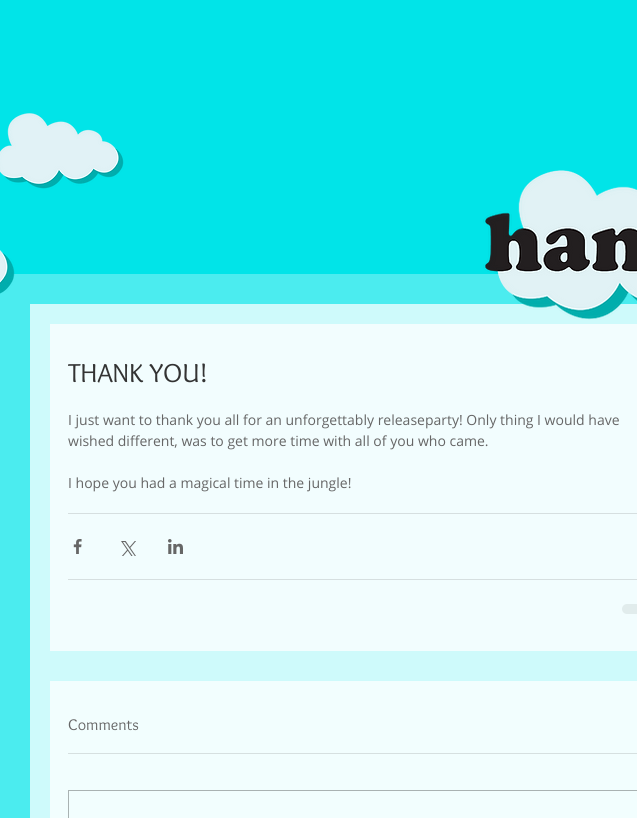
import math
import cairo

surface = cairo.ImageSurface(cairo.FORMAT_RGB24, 637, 818)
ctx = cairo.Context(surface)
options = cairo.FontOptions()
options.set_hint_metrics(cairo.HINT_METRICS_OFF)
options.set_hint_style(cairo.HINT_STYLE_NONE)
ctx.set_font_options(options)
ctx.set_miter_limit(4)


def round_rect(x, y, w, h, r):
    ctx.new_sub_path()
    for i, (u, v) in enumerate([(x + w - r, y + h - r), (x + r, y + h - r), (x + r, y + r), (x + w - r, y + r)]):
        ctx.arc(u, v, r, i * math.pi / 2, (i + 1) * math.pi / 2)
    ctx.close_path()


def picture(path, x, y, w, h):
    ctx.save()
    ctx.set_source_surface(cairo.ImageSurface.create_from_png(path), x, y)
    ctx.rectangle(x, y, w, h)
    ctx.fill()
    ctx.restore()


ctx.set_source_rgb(0.004, 0.894, 0.91)
ctx.paint()
ctx.set_source_rgb(0.294, 0.922, 0.937)
ctx.rectangle(0, 274, 637, 544)
ctx.fill()
picture("img1.png", 0, 113, 124, 76)
picture("img2.png", 0, 250, 15, 44)
ctx.set_source_rgb(0.808, 0.98, 0.984)
ctx.rectangle(30, 304, 607, 514)
ctx.fill()
picture("img3.png", 483, 170, 154, 150)
ctx.set_source_rgb(0.949, 0.992, 0.996)
ctx.rectangle(50, 324, 587, 327)
ctx.fill()
ctx.select_font_face("Overlock")
ctx.set_font_size(27)
ctx.set_source_rgb(0.2, 0.2, 0.2)
ctx.move_to(68, 382)
ctx.show_text("THANK YOU!")
ctx.select_font_face("Open Sans")
ctx.set_font_size(14)
ctx.set_source_rgb(0.4, 0.4, 0.4)
ctx.move_to(68, 425)
ctx.show_text("I just want to thank you all for an unforgettably releaseparty! Only thing I would have")
ctx.move_to(68, 446)
ctx.show_text("wished different, was to get more time with all of you who came.")
ctx.move_to(68, 488)
ctx.show_text("I hope you had a magical time in the jungle!")
ctx.set_source_rgb(0.839, 0.875, 0.878)
ctx.rectangle(68, 513, 569, 1)
ctx.fill()
picture("img4.png", 73, 539, 9, 15)
picture("img5.png", 121, 541, 15, 15)
picture("img6.png", 168, 539, 15, 15)
ctx.rectangle(68, 579, 569, 1)
ctx.fill()
ctx.set_source_rgb(0.882, 0.922, 0.925)
round_rect(622, 604, 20, 10, 5)
ctx.fill()
ctx.set_source_rgb(0.949, 0.996, 0.996)
ctx.rectangle(50, 681, 587, 137)
ctx.fill()
ctx.select_font_face("Overlock")
ctx.set_font_size(16)
ctx.set_source_rgb(0.4, 0.4, 0.4)
ctx.move_to(68, 730)
ctx.show_text("Comments")
ctx.set_source_rgb(0.839, 0.878, 0.878)
ctx.rectangle(68, 753, 569, 1)
ctx.fill()
ctx.rectangle(68.5, 790.5, 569, 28)
ctx.set_source_rgb(0.663, 0.698, 0.698)
ctx.set_line_width(1)
ctx.stroke()
surface.write_to_png("page.png")
